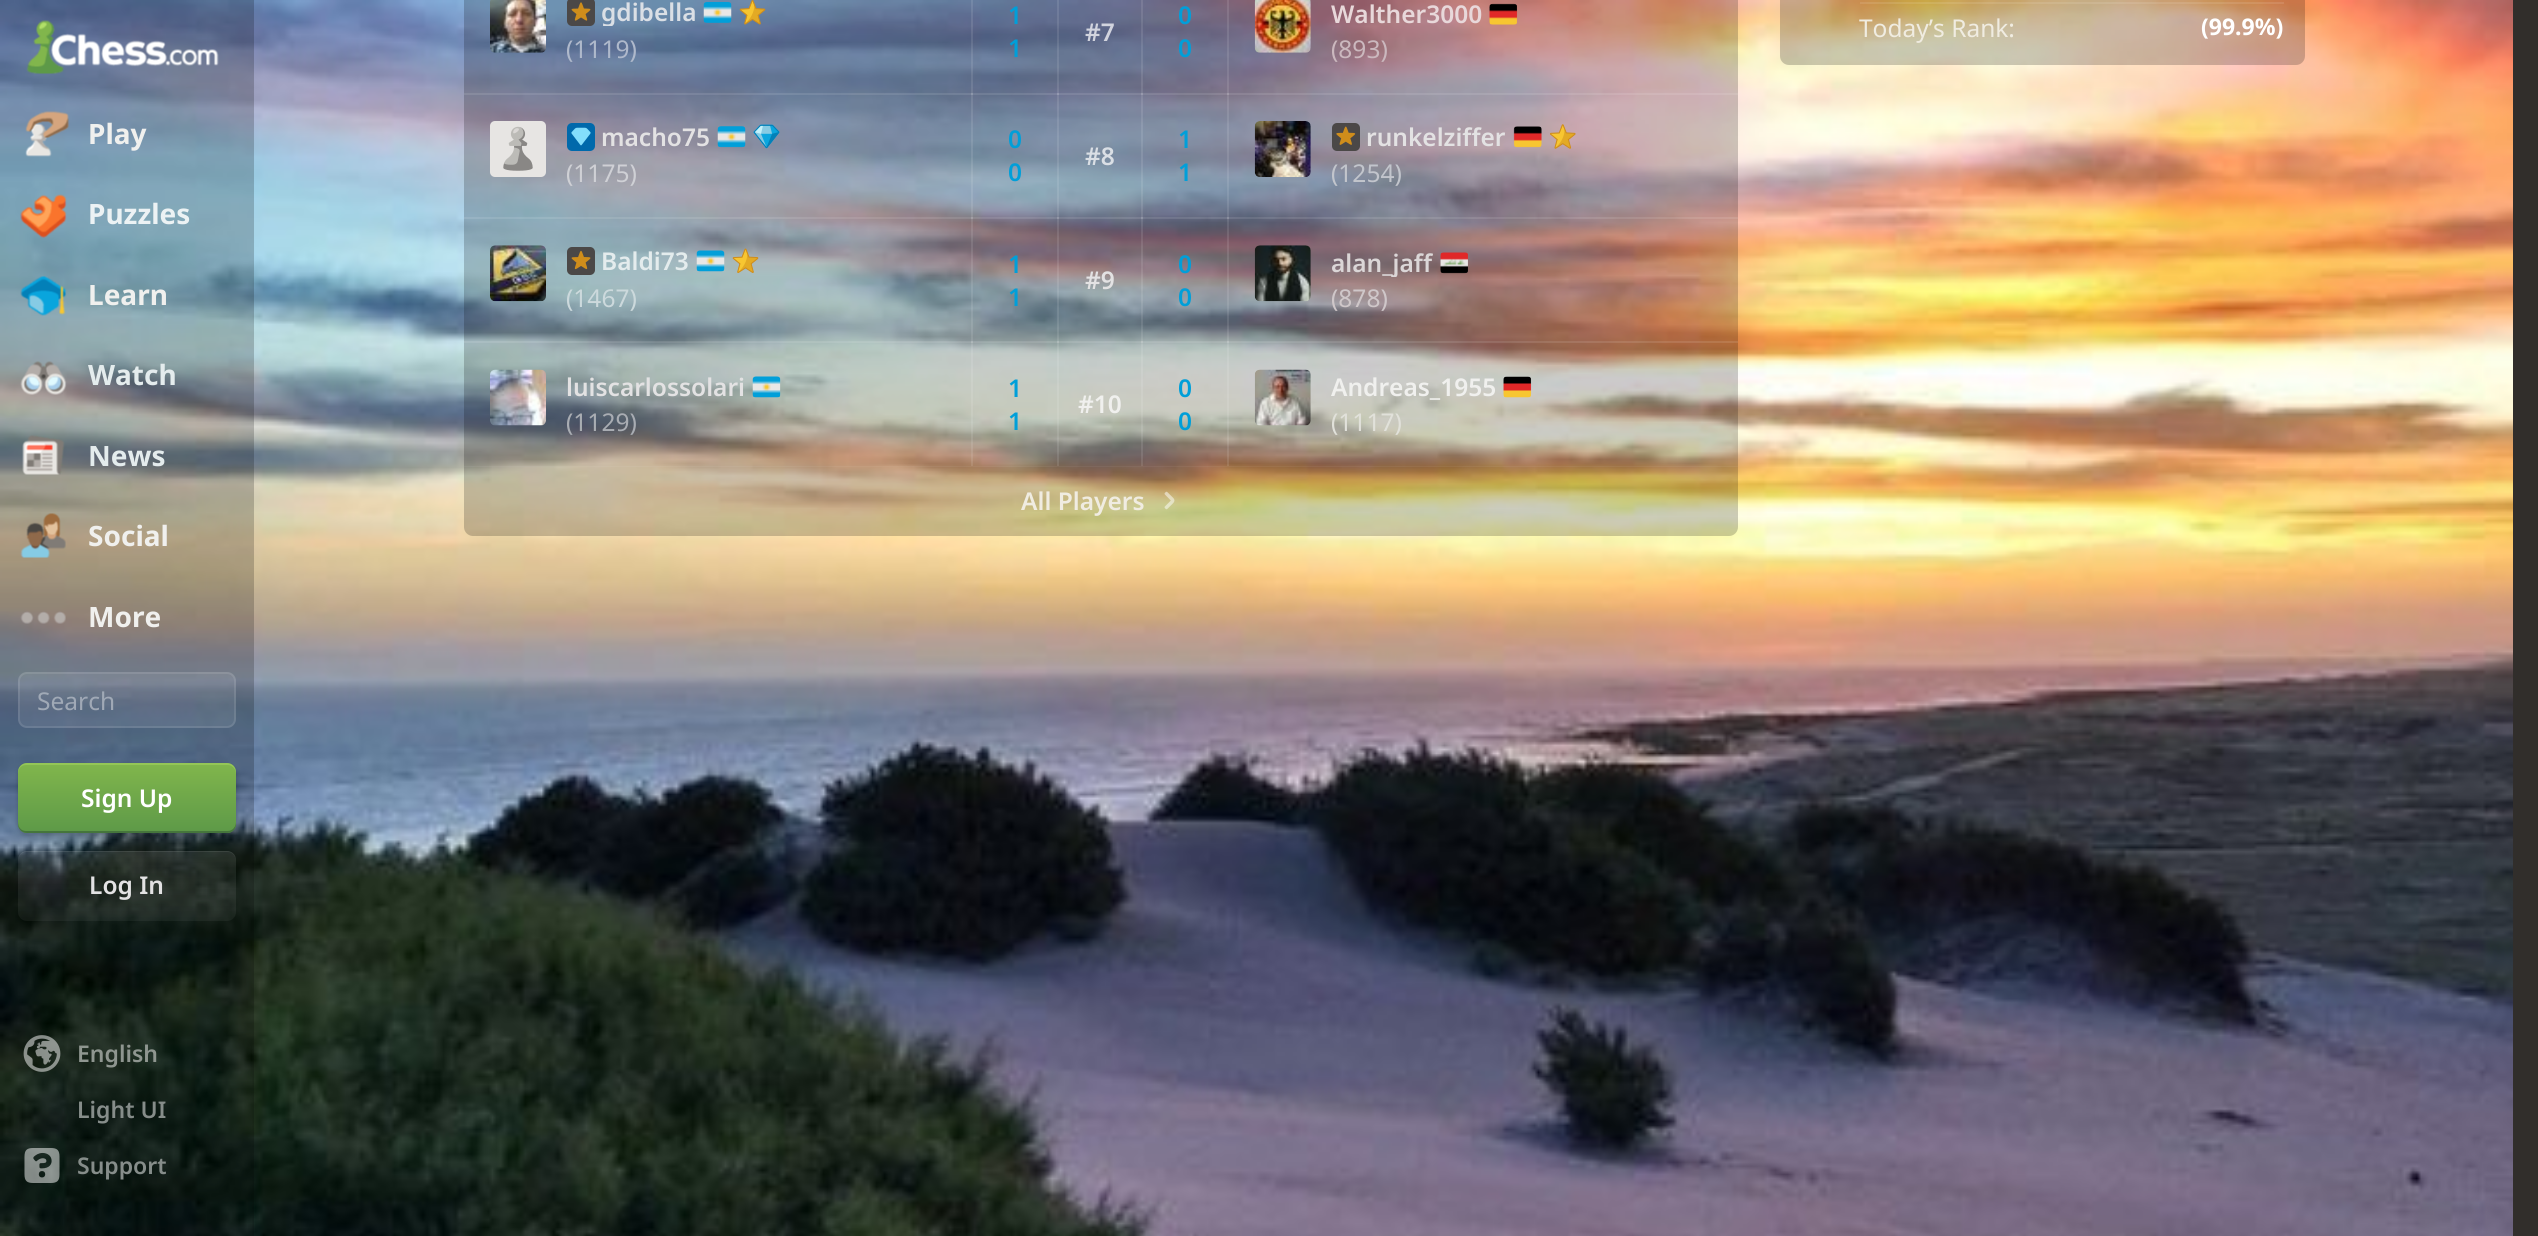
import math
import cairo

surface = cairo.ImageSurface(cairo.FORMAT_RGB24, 2538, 1236)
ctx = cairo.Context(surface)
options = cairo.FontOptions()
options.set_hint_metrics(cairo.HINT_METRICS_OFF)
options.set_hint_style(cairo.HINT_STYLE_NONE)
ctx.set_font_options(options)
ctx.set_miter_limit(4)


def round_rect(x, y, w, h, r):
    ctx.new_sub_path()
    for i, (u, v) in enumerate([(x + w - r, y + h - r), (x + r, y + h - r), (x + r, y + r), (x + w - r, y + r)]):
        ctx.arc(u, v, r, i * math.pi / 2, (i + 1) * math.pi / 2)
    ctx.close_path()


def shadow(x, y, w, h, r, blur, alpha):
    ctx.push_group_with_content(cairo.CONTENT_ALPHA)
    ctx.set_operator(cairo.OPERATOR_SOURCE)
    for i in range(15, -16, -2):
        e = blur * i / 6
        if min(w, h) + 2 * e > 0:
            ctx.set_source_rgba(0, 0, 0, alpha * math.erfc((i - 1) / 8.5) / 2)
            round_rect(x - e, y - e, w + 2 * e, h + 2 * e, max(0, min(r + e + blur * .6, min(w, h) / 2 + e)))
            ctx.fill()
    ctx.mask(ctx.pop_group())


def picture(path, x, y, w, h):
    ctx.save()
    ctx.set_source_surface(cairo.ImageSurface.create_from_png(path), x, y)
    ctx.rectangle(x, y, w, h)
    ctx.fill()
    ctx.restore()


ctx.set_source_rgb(0.192, 0.18, 0.169)
ctx.paint()
picture("img1.png", 0, 0, 2513, 1236)
ctx.set_source_rgba(0, 0, 0, 0.2)
ctx.rectangle(0, 0, 254, 1236)
ctx.fill()
picture("img2.png", 26, 20, 193, 54)
picture("img3.png", 25, 111, 44, 46)
ctx.select_font_face("Noto Sans", cairo.FONT_SLANT_NORMAL, cairo.FONT_WEIGHT_BOLD)
ctx.set_font_size(28)
ctx.set_source_rgb(0.941, 0.941, 0.933)
ctx.move_to(88, 144)
ctx.show_text("Play")
picture("img4.png", 20, 194, 47, 44)
ctx.set_source_rgb(0.925, 0.949, 0.957)
ctx.move_to(88, 224)
ctx.show_text("Puzzles")
picture("img5.png", 20, 276, 47, 40)
ctx.set_source_rgb(0.941, 0.941, 0.933)
ctx.move_to(88, 305)
ctx.show_text("Learn")
picture("img6.png", 20, 361, 47, 34)
ctx.set_source_rgb(0.894, 0.922, 0.929)
ctx.move_to(88, 385)
ctx.show_text("Watch")
picture("img7.png", 22, 435, 43, 40)
ctx.move_to(88, 466)
ctx.show_text("News")
picture("img8.png", 20, 513, 46, 45)
ctx.set_source_rgb(0.941, 0.941, 0.933)
ctx.move_to(88, 546)
ctx.show_text("Social")
picture("img9.png", 20, 611, 46, 13)
ctx.move_to(88, 627)
ctx.show_text("More")
ctx.set_source_rgba(1, 1, 1, 0.08)
round_rect(18, 672, 218, 56, 9)
ctx.fill()
round_rect(19, 673, 216, 54, 8)
ctx.set_source_rgba(1, 1, 1, 0.1)
ctx.stroke()
ctx.select_font_face("Noto Sans")
ctx.set_font_size(24.5)
ctx.set_source_rgb(0.627, 0.663, 0.714)
ctx.move_to(37, 710)
ctx.show_text("Search")
ctx.set_source_rgb(0, 0, 0)
shadow(18, 767, 218, 70, 9, 3.5, 0.1)
shadow(18, 765, 218, 70, 9, 2, 0.14)
gradient = cairo.LinearGradient(127, 763, 127, 833)
gradient.add_color_stop_rgba(0, 0.506, 0.714, 0.298, 1)
gradient.add_color_stop_rgba(1, 0.365, 0.6, 0.282, 1)
ctx.set_source(gradient)
round_rect(18, 763, 218, 70, 9)
ctx.fill()
ctx.set_source_rgb(0.271, 0.459, 0.235)
ctx.new_path()
ctx.move_to(18, 822)
ctx.line_to(18, 824)
ctx.curve_to(18, 829, 22, 833, 27, 833)
ctx.line_to(227, 833)
ctx.curve_to(232, 833, 236, 829, 236, 824)
ctx.line_to(236, 822)
ctx.curve_to(236, 827, 232, 831, 228, 831)
ctx.line_to(26, 831)
ctx.curve_to(21, 831, 18, 827, 18, 822)
ctx.close_path()
ctx.fill()
ctx.set_source_rgba(0.698, 0.878, 0.408, 0.4)
ctx.new_path()
ctx.move_to(26, 765)
ctx.line_to(228, 765)
ctx.curve_to(232, 765, 236, 769, 236, 774)
ctx.line_to(236, 772)
ctx.curve_to(236, 767, 232, 763, 227, 763)
ctx.line_to(27, 763)
ctx.curve_to(22, 763, 18, 767, 18, 772)
ctx.line_to(18, 774)
ctx.curve_to(18, 769, 21, 765, 26, 765)
ctx.close_path()
ctx.fill()
ctx.select_font_face("Noto Sans SemiBold")
ctx.set_source_rgb(1, 1, 1)
ctx.move_to(81, 807)
ctx.show_text("Sign Up")
gradient = cairo.LinearGradient(127, 851, 127, 921)
gradient.add_color_stop_rgba(0, 1, 1, 1, 0.1)
gradient.add_color_stop_rgba(1, 1, 1, 1, 0.05)
ctx.set_source(gradient)
round_rect(18, 851, 218, 70, 9)
ctx.fill()
ctx.set_source_rgba(1, 1, 1, 0.08)
ctx.new_path()
ctx.move_to(26, 852)
ctx.line_to(228, 852)
ctx.curve_to(232, 852, 236, 856, 236, 861)
ctx.line_to(236, 860)
ctx.curve_to(236, 855, 232, 851, 227, 851)
ctx.line_to(27, 851)
ctx.curve_to(22, 851, 18, 855, 18, 860)
ctx.line_to(18, 861)
ctx.curve_to(18, 856, 21, 852, 26, 852)
ctx.close_path()
ctx.fill()
ctx.set_source_rgb(0.89, 0.886, 0.89)
ctx.move_to(89, 894)
ctx.show_text("Log In")
picture("img10.png", 23, 1035, 38, 37)
ctx.set_font_size(23)
ctx.set_source_rgb(0.561, 0.588, 0.565)
ctx.move_to(77, 1062)
ctx.show_text("English")
ctx.set_source_rgb(0.525, 0.553, 0.541)
ctx.move_to(77, 1118)
ctx.show_text("Light UI")
picture("img11.png", 24, 1148, 36, 35)
ctx.move_to(77, 1174)
ctx.show_text("Support")
ctx.set_source_rgba(0, 0, 0, 0.2)
round_rect(464, -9, 1274, 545, 9)
ctx.fill()
picture("img12.png", 490, 0, 56, 53)
ctx.set_source_rgb(0.294, 0.282, 0.278)
round_rect(567, -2, 28, 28, 5)
ctx.fill()
picture("img13.png", 571, 2, 20, 19)
ctx.save()
ctx.rectangle(602, 0, 95, 26)
ctx.clip()
ctx.set_font_size(24.5)
ctx.set_source_rgb(0.855, 0.875, 0.898)
ctx.move_to(601, 21)
ctx.show_text("gdibella")
ctx.restore()
picture("img14.png", 703, 2, 29, 21)
picture("img15.png", 739, 0, 27, 25)
ctx.select_font_face("Noto Sans")
ctx.set_font_size(24.5)
ctx.set_source_rgb(0.686, 0.725, 0.796)
ctx.move_to(566, 58)
ctx.show_text("(1119)")
ctx.set_source_rgba(1, 1, 1, 0.1)
ctx.rectangle(464, 93, 1274, 2)
ctx.fill()
ctx.rectangle(464, 217, 1274, 2)
ctx.fill()
ctx.rectangle(464, 341, 1274, 2)
ctx.fill()
ctx.rectangle(971, 341, 2, 125)
ctx.fill()
ctx.rectangle(971, 217, 2, 126)
ctx.fill()
ctx.rectangle(971, 93, 2, 126)
ctx.fill()
ctx.rectangle(971, 0, 2, 95)
ctx.fill()
ctx.select_font_face("Noto Sans SemiBold")
ctx.set_source_rgb(0, 0.624, 0.851)
ctx.move_to(1008, 24)
ctx.show_text("1")
ctx.move_to(1008, 57)
ctx.show_text("1")
ctx.set_source_rgba(1, 1, 1, 0.1)
ctx.rectangle(1057, 341, 2, 125)
ctx.fill()
ctx.rectangle(1057, 217, 2, 126)
ctx.fill()
ctx.rectangle(1057, 93, 2, 126)
ctx.fill()
ctx.rectangle(1057, 0, 2, 95)
ctx.fill()
ctx.set_source_rgb(0.824, 0.831, 0.871)
ctx.move_to(1085, 41)
ctx.show_text("#7")
ctx.set_source_rgba(1, 1, 1, 0.1)
ctx.rectangle(1141, 341, 2, 125)
ctx.fill()
ctx.rectangle(1141, 217, 2, 126)
ctx.fill()
ctx.rectangle(1141, 93, 2, 126)
ctx.fill()
ctx.rectangle(1141, 0, 2, 95)
ctx.fill()
ctx.set_source_rgb(0, 0.624, 0.851)
ctx.move_to(1178, 24)
ctx.show_text("0")
ctx.move_to(1178, 57)
ctx.show_text("0")
ctx.set_source_rgba(1, 1, 1, 0.1)
ctx.rectangle(1227, 341, 2, 125)
ctx.fill()
ctx.rectangle(1227, 217, 2, 126)
ctx.fill()
ctx.rectangle(1227, 93, 2, 126)
ctx.fill()
ctx.rectangle(1227, 0, 2, 95)
ctx.fill()
picture("img16.png", 1254, 0, 57, 53)
ctx.set_source_rgb(0.91, 0.847, 0.855)
ctx.move_to(1331, 23)
ctx.show_text("Walther3000")
picture("img17.png", 1489, 3, 29, 22)
ctx.select_font_face("Noto Sans")
ctx.set_source_rgb(0.796, 0.722, 0.745)
ctx.move_to(1331, 58)
ctx.show_text("(893)")
picture("img18.png", 490, 121, 56, 56)
ctx.set_source_rgb(0, 0.412, 0.671)
round_rect(567, 123, 28, 28, 5)
ctx.fill()
picture("img19.png", 571, 127, 20, 19)
ctx.select_font_face("Noto Sans SemiBold")
ctx.set_source_rgb(0.89, 0.886, 0.89)
ctx.move_to(601, 146)
ctx.show_text("macho75")
picture("img20.png", 717, 126, 29, 22)
picture("img21.png", 753, 124, 27, 25)
ctx.select_font_face("Noto Sans")
ctx.set_source_rgb(0.812, 0.816, 0.835)
ctx.move_to(566, 182)
ctx.show_text("(1175)")
ctx.select_font_face("Noto Sans SemiBold")
ctx.set_source_rgb(0, 0.624, 0.851)
ctx.move_to(1008, 148)
ctx.show_text("0")
ctx.move_to(1008, 181)
ctx.show_text("0")
ctx.set_source_rgb(0.855, 0.875, 0.898)
ctx.move_to(1085, 165)
ctx.show_text("#8")
ctx.set_source_rgb(0, 0.624, 0.851)
ctx.move_to(1178, 148)
ctx.show_text("1")
ctx.move_to(1178, 181)
ctx.show_text("1")
picture("img22.png", 1254, 121, 57, 56)
ctx.set_source_rgb(0.294, 0.282, 0.278)
round_rect(1332, 123, 28, 28, 5)
ctx.fill()
picture("img23.png", 1336, 126, 20, 19)
ctx.set_source_rgb(0.89, 0.886, 0.89)
ctx.move_to(1366, 146)
ctx.show_text("runkelziffer")
picture("img24.png", 1513, 126, 29, 22)
picture("img25.png", 1550, 124, 26, 25)
ctx.select_font_face("Noto Sans")
ctx.set_source_rgb(0.761, 0.773, 0.8)
ctx.move_to(1331, 182)
ctx.show_text("(1254)")
picture("img26.png", 490, 245, 56, 57)
ctx.set_source_rgb(0.294, 0.282, 0.278)
round_rect(567, 247, 28, 28, 5)
ctx.fill()
picture("img27.png", 571, 250, 20, 20)
ctx.select_font_face("Noto Sans SemiBold")
ctx.set_source_rgb(0.894, 0.922, 0.929)
ctx.move_to(601, 270)
ctx.show_text("Baldi73")
picture("img28.png", 696, 250, 29, 22)
picture("img29.png", 732, 248, 27, 25)
ctx.select_font_face("Noto Sans")
ctx.set_source_rgb(0.8, 0.851, 0.863)
ctx.move_to(566, 307)
ctx.show_text("(1467)")
ctx.select_font_face("Noto Sans SemiBold")
ctx.set_source_rgb(0, 0.624, 0.851)
ctx.move_to(1008, 273)
ctx.show_text("1")
ctx.move_to(1008, 306)
ctx.show_text("1")
ctx.set_source_rgb(0.89, 0.886, 0.89)
ctx.move_to(1085, 289)
ctx.show_text("#9")
ctx.set_source_rgb(0, 0.624, 0.851)
ctx.move_to(1178, 273)
ctx.show_text("0")
ctx.move_to(1178, 306)
ctx.show_text("0")
picture("img30.png", 1254, 245, 57, 57)
ctx.save()
ctx.rectangle(1332, 249, 101, 28)
ctx.clip()
ctx.set_source_rgb(0.859, 0.839, 0.843)
ctx.move_to(1331, 272)
ctx.show_text("alan_jaff")
ctx.restore()
picture("img31.png", 1440, 252, 28, 22)
ctx.select_font_face("Noto Sans")
ctx.set_source_rgb(0.812, 0.78, 0.788)
ctx.move_to(1331, 307)
ctx.show_text("(878)")
picture("img32.png", 490, 369, 56, 57)
ctx.select_font_face("Noto Sans SemiBold")
ctx.set_source_rgb(0.89, 0.886, 0.89)
ctx.move_to(566, 396)
ctx.show_text("luiscarlossolari")
picture("img33.png", 752, 376, 29, 22)
ctx.select_font_face("Noto Sans")
ctx.set_source_rgb(0.663, 0.678, 0.702)
ctx.move_to(566, 431)
ctx.show_text("(1129)")
ctx.select_font_face("Noto Sans SemiBold")
ctx.set_source_rgb(0, 0.624, 0.851)
ctx.move_to(1008, 397)
ctx.show_text("1")
ctx.move_to(1008, 430)
ctx.show_text("1")
ctx.set_source_rgb(0.941, 0.941, 0.933)
ctx.move_to(1078, 413)
ctx.show_text("#10")
ctx.set_source_rgb(0, 0.624, 0.851)
ctx.move_to(1178, 397)
ctx.show_text("0")
ctx.move_to(1178, 430)
ctx.show_text("0")
picture("img34.png", 1254, 369, 57, 57)
ctx.set_source_rgb(0.941, 0.941, 0.933)
ctx.move_to(1331, 396)
ctx.show_text("Andreas_1955")
picture("img35.png", 1503, 376, 29, 22)
ctx.select_font_face("Noto Sans")
ctx.set_source_rgb(0.882, 0.882, 0.855)
ctx.move_to(1331, 431)
ctx.show_text("(1117)")
ctx.set_source_rgba(1, 1, 1, 0.05)
ctx.rectangle(464, 466, 1274, 1)
ctx.fill()
ctx.select_font_face("Noto Sans SemiBold")
ctx.set_source_rgb(0.941, 0.925, 0.882)
ctx.move_to(1021, 510)
ctx.show_text("All Players")
picture("img36.png", 1164, 491, 11, 19)
ctx.set_source_rgba(0, 0, 0, 0.2)
round_rect(1780, -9, 525, 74, 9)
ctx.fill()
ctx.set_source_rgba(1, 1, 1, 0.1)
ctx.rectangle(1860, 2, 424, 2)
ctx.fill()
ctx.select_font_face("Noto Sans")
ctx.set_source_rgb(0.941, 0.925, 0.882)
ctx.move_to(1859, 37)
ctx.show_text("Today’s Rank:")
ctx.select_font_face("Noto Sans", cairo.FONT_SLANT_NORMAL, cairo.FONT_WEIGHT_BOLD)
ctx.set_font_size(23)
ctx.set_source_rgb(1, 1, 1)
ctx.move_to(2201, 35)
ctx.show_text("(99.9%)")
surface.write_to_png("page.png")
